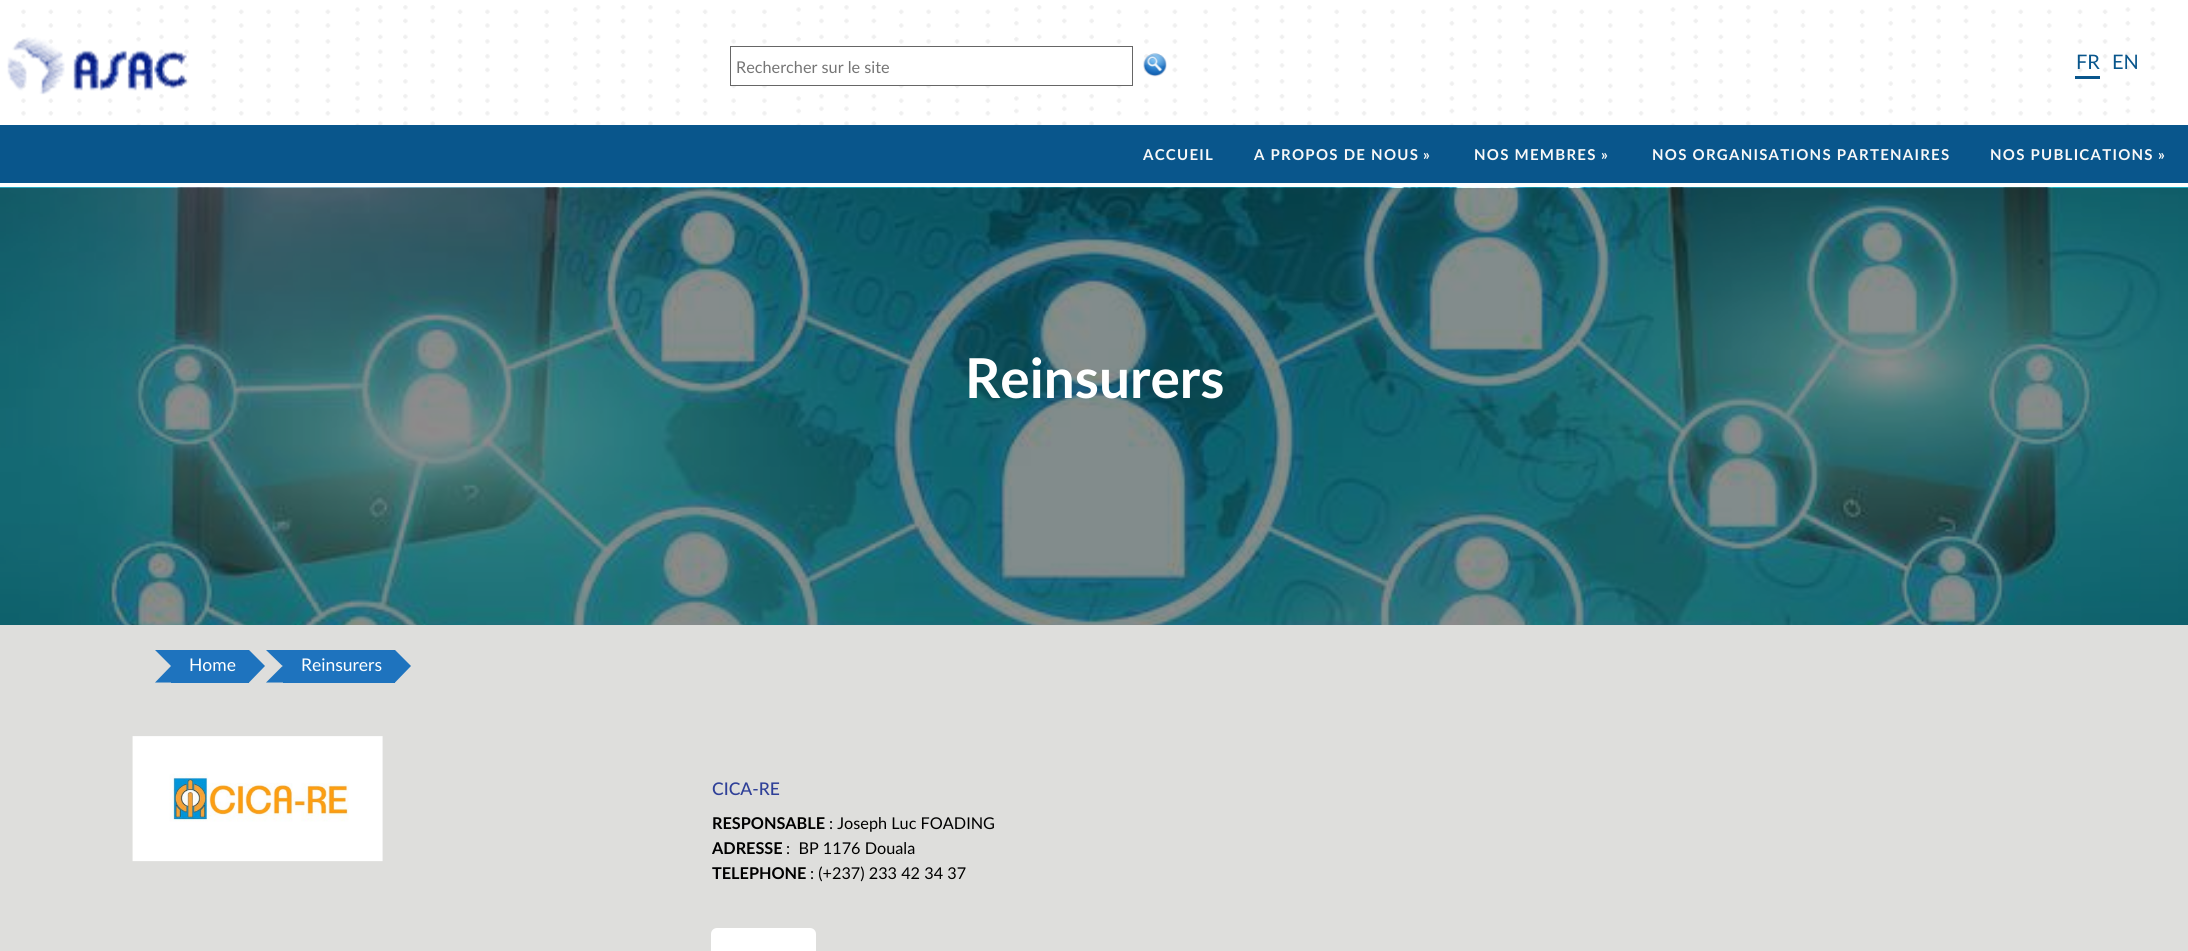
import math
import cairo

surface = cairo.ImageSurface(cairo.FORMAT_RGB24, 2188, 951)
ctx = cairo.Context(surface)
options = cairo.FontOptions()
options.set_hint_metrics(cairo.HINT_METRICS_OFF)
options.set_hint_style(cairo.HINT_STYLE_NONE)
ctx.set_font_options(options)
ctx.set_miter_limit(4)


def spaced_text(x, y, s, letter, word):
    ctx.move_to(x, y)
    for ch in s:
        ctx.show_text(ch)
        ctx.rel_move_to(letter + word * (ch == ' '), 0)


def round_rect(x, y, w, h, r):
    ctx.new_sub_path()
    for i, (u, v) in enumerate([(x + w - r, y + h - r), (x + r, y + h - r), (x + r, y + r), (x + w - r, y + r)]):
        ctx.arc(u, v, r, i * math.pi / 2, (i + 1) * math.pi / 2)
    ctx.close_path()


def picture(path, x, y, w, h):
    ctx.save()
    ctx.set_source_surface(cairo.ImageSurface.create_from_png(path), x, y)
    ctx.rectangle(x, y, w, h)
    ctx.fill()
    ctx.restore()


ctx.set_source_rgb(1, 1, 1)
ctx.paint()
picture("img1.png", 21, 5, 2135, 120)
picture("img2.png", 7, 37, 180, 58)
ctx.set_source_rgb(1, 1, 1)
ctx.rectangle(731, 49, 391, 36)
ctx.fill()
ctx.rectangle(730.5, 46.5, 402, 39)
ctx.set_source_rgb(0.4, 0.4, 0.4)
ctx.set_line_width(1)
ctx.stroke()
ctx.select_font_face("Lato")
ctx.set_font_size(16.25)
ctx.set_source_rgb(0.459, 0.459, 0.459)
ctx.move_to(736, 73)
ctx.show_text("Rechercher sur le site")
picture("img3.png", 1143, 53, 24, 24)
ctx.set_source_rgb(0.039, 0.337, 0.549)
ctx.rectangle(2075, 76, 25, 3)
ctx.fill()
ctx.set_font_size(20)
ctx.move_to(2076, 69)
ctx.show_text("FR")
ctx.move_to(2112, 69)
ctx.show_text("EN")
ctx.rectangle(0, 125, 2188, 58)
ctx.fill()
ctx.select_font_face("Lato", cairo.FONT_SLANT_NORMAL, cairo.FONT_WEIGHT_BOLD)
ctx.set_font_size(15)
ctx.set_source_rgb(0.969, 0.969, 0.969)
spaced_text(1143, 160, "ACCUEIL", 1.25, 0)
spaced_text(1254, 160, "A PROPOS DE NOUS", 1.25, 0)
spaced_text(1423, 160, "»", 1.25, 0)
spaced_text(1474, 160, "NOS MEMBRES", 1.25, 0)
spaced_text(1601, 160, "»", 1.25, 0)
spaced_text(1652, 160, "NOS ORGANISATIONS PARTENAIRES", 1.25, 0)
spaced_text(1990, 160, "NOS PUBLICATIONS", 1.25, 0)
spaced_text(2158, 160, "»", 1.25, 0)
ctx.set_source_rgb(0.871, 0.871, 0.863)
ctx.rectangle(0, 625, 2188, 326)
ctx.fill()
picture("img4.png", 0, 187, 2188, 438)
ctx.set_font_size(55)
ctx.set_source_rgb(1, 1, 1)
ctx.move_to(965, 398)
ctx.show_text("Reinsurers")
ctx.set_source_rgb(0.118, 0.451, 0.745)
ctx.rectangle(188, 650, 61, 33)
ctx.fill()
ctx.new_path()
ctx.move_to(155, 650)
ctx.line_to(187.5, 650)
ctx.line_to(171, 666)
ctx.close_path()
ctx.fill()
ctx.rectangle(171, 650, 17, 33)
ctx.fill()
ctx.new_path()
ctx.move_to(187.5, 682.5)
ctx.line_to(155, 682.5)
ctx.line_to(171, 666)
ctx.close_path()
ctx.fill()
ctx.select_font_face("Lato")
ctx.set_font_size(17.5)
ctx.set_source_rgb(1, 1, 1)
ctx.move_to(189, 671)
ctx.show_text("Home")
ctx.set_source_rgb(0.118, 0.451, 0.745)
ctx.new_path()
ctx.move_to(249, 682.5)
ctx.line_to(249, 650)
ctx.line_to(265, 666)
ctx.close_path()
ctx.fill()
ctx.rectangle(299, 650, 96, 33)
ctx.fill()
ctx.new_path()
ctx.move_to(266, 650)
ctx.line_to(299, 650)
ctx.line_to(282.5, 666)
ctx.close_path()
ctx.fill()
ctx.rectangle(283, 650, 16, 33)
ctx.fill()
ctx.new_path()
ctx.move_to(299, 682.5)
ctx.line_to(266, 682.5)
ctx.line_to(282.5, 666)
ctx.close_path()
ctx.fill()
ctx.set_source_rgb(1, 1, 1)
ctx.move_to(301, 671)
ctx.show_text("Reinsurers")
ctx.set_source_rgb(0.118, 0.451, 0.745)
ctx.new_path()
ctx.move_to(395, 682.5)
ctx.line_to(395, 650)
ctx.line_to(411, 666)
ctx.close_path()
ctx.fill()
picture("img5.png", 132, 736, 251, 126)
ctx.select_font_face("Lato Medium")
ctx.set_source_rgb(0.184, 0.251, 0.596)
ctx.move_to(712, 795)
ctx.show_text("CICA-RE")
ctx.select_font_face("Lato", cairo.FONT_SLANT_NORMAL, cairo.FONT_WEIGHT_BOLD)
ctx.set_font_size(16.25)
ctx.set_source_rgb(0, 0, 0)
ctx.move_to(712, 829)
ctx.show_text("RESPONSABLE")
ctx.select_font_face("Lato")
ctx.move_to(829, 829)
ctx.show_text(": Joseph Luc FOADING")
ctx.select_font_face("Lato", cairo.FONT_SLANT_NORMAL, cairo.FONT_WEIGHT_BOLD)
ctx.move_to(712, 854)
ctx.show_text("ADRESSE")
ctx.select_font_face("Lato")
ctx.move_to(786, 854)
ctx.show_text(":  BP 1176 Douala")
ctx.select_font_face("Lato", cairo.FONT_SLANT_NORMAL, cairo.FONT_WEIGHT_BOLD)
ctx.move_to(712, 879)
ctx.show_text("TELEPHONE")
ctx.select_font_face("Lato")
ctx.move_to(810, 879)
ctx.show_text(": (+237) 233 42 34 37")
ctx.set_source_rgb(1, 1, 1)
round_rect(711, 928, 105, 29, 6)
ctx.fill()
surface.write_to_png("page.png")
